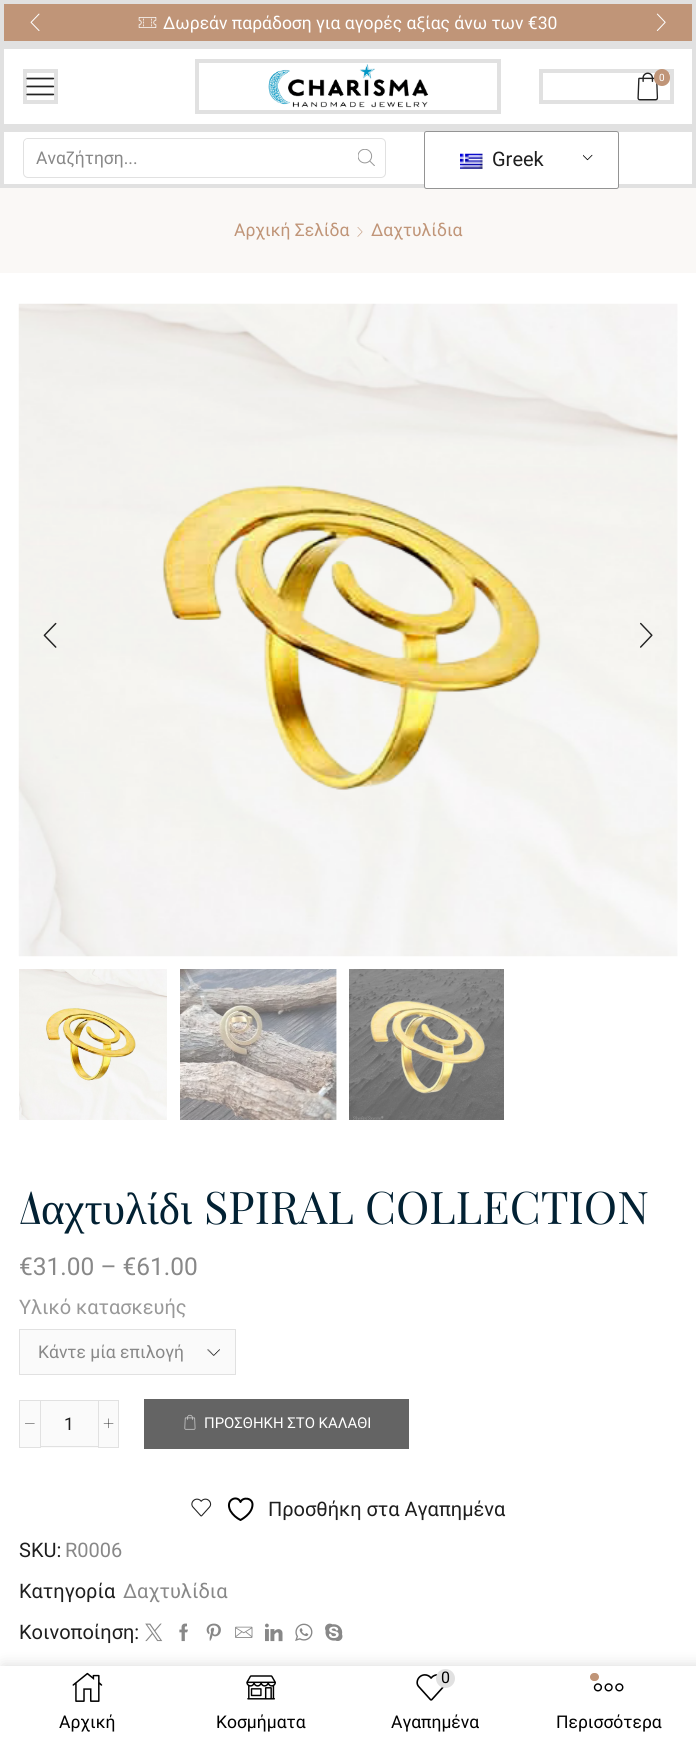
import math
import cairo

surface = cairo.ImageSurface(cairo.FORMAT_RGB24, 696, 1741)
ctx = cairo.Context(surface)
options = cairo.FontOptions()
options.set_hint_metrics(cairo.HINT_METRICS_OFF)
options.set_hint_style(cairo.HINT_STYLE_NONE)
ctx.set_font_options(options)
ctx.set_miter_limit(4)


def round_rect(x, y, w, h, r):
    ctx.new_sub_path()
    for i, (u, v) in enumerate([(x + w - r, y + h - r), (x + r, y + h - r), (x + r, y + r), (x + w - r, y + r)]):
        ctx.arc(u, v, r, i * math.pi / 2, (i + 1) * math.pi / 2)
    ctx.close_path()


def shadow(x, y, w, h, r, blur, alpha):
    ctx.push_group_with_content(cairo.CONTENT_ALPHA)
    ctx.set_operator(cairo.OPERATOR_SOURCE)
    for i in range(15, -16, -2):
        e = blur * i / 6
        if min(w, h) + 2 * e > 0:
            ctx.set_source_rgba(0, 0, 0, alpha * math.erfc((i - 1) / 8.5) / 2)
            round_rect(x - e, y - e, w + 2 * e, h + 2 * e, max(0, min(r + e + blur * .6, min(w, h) / 2 + e)))
            ctx.fill()
    ctx.mask(ctx.pop_group())


def picture(path, x, y, w, h):
    ctx.save()
    ctx.set_source_surface(cairo.ImageSurface.create_from_png(path), x, y)
    ctx.rectangle(x, y, w, h)
    ctx.fill()
    ctx.restore()


ctx.set_source_rgb(1, 1, 1)
ctx.paint()
ctx.set_source_rgb(0.753, 0.584, 0.471)
ctx.rectangle(2, 2, 692, 41)
ctx.fill_preserve()
ctx.set_source_rgb(0.882, 0.882, 0.882)
ctx.set_line_width(4)
ctx.stroke()
picture("img1.png", 30, 13, 10, 18)
picture("img2.png", 138, 17, 19, 11)
ctx.select_font_face("Roboto")
ctx.set_font_size(17.5)
ctx.set_source_rgb(1, 1, 1)
ctx.move_to(163, 29)
ctx.show_text("Δωρεάν παράδοση για αγορές αξίας άνω των €30")
picture("img3.png", 656, 13, 10, 18)
ctx.rectangle(2, 47, 692, 79)
ctx.set_source_rgb(0.882, 0.882, 0.882)
ctx.stroke()
ctx.rectangle(25, 71, 31, 31)
ctx.stroke()
picture("img4.png", 26, 77, 29, 19)
ctx.rectangle(197, 61, 302, 51)
ctx.stroke()
picture("img5.png", 268, 64, 161, 44)
ctx.rectangle(541, 71, 131, 31)
ctx.stroke()
picture("img6.png", 637, 72, 22, 29)
ctx.set_source_rgb(0.753, 0.584, 0.471)
round_rect(654, 69, 16, 17, 8)
ctx.fill()
ctx.set_font_size(10)
ctx.set_source_rgb(1, 1, 1)
ctx.move_to(659, 81)
ctx.show_text("0")
ctx.rectangle(2, 130, 692, 56)
ctx.set_source_rgb(0.882, 0.882, 0.882)
ctx.stroke()
round_rect(23.5, 138.5, 362, 39, 4.5)
ctx.set_line_width(1)
ctx.stroke()
ctx.set_source_rgb(1, 1, 1)
ctx.new_path()
ctx.move_to(28, 139)
ctx.line_to(348, 139)
ctx.line_to(348, 176)
ctx.line_to(28, 176)
ctx.curve_to(26, 176, 24, 174, 24, 172)
ctx.line_to(24, 143)
ctx.curve_to(24, 141, 26, 139, 28, 139)
ctx.close_path()
ctx.fill()
ctx.set_font_size(17.5)
ctx.set_source_rgb(0.533, 0.533, 0.533)
ctx.move_to(36, 164)
ctx.show_text("Αναζήτηση...")
picture("img7.png", 358, 149, 17, 17)
ctx.set_source_rgb(0.98, 0.969, 0.961)
ctx.rectangle(0, 188, 696, 85)
ctx.fill()
ctx.set_source_rgb(1, 1, 1)
round_rect(424, 131, 195, 58, 2.5)
ctx.fill()
picture("img8.png", 583, 154, 10, 7)
round_rect(424.5, 131.5, 194, 57, 2)
ctx.set_source_rgb(0.58, 0.58, 0.58)
ctx.stroke()
picture("img9.png", 460, 153, 23, 16)
ctx.set_font_size(20)
ctx.set_source_rgb(0.118, 0.118, 0.118)
ctx.move_to(492, 166)
ctx.show_text("Greek")
ctx.set_font_size(17.5)
ctx.set_source_rgb(0.753, 0.584, 0.471)
ctx.move_to(234, 236)
ctx.show_text("Αρχική Σελίδα")
picture("img10.png", 357, 227, 6, 10)
ctx.move_to(371, 236)
ctx.show_text("Δαχτυλίδια")
picture("img11.png", 18, 303, 660, 654)
picture("img12.png", 43, 622, 14, 26)
picture("img13.png", 640, 622, 13, 26)
picture("img14.png", 19, 969, 148, 151)
picture("img15.png", 180, 969, 157, 151)
picture("img16.png", 349, 969, 155, 151)
ctx.select_font_face("Playfair Display")
ctx.set_font_size(45)
ctx.set_source_rgb(0.008, 0.129, 0.2)
ctx.move_to(19, 1224)
ctx.show_text("Δ")
ctx.select_font_face("Liberation Serif")
ctx.move_to(41, 1224)
ctx.show_text("αχτυλίδι")
ctx.select_font_face("Playfair Display")
ctx.move_to(204, 1224)
ctx.show_text("SPIRAL COLLECTION")
ctx.select_font_face("Roboto")
ctx.set_font_size(24.5)
ctx.set_source_rgb(0.533, 0.533, 0.533)
ctx.move_to(19, 1275)
ctx.show_text("€31.00 – €61.00")
ctx.set_font_size(20)
ctx.set_source_rgb(0.6, 0.6, 0.6)
ctx.move_to(19, 1314)
ctx.show_text("Υλικό κατασκευής")
ctx.set_source_rgb(0.98, 0.98, 0.98)
ctx.rectangle(20, 1330, 215, 44)
ctx.fill()
picture("img17.png", 207, 1349, 13, 7)
ctx.rectangle(19.5, 1329.5, 216, 45)
ctx.set_source_rgb(0.882, 0.882, 0.882)
ctx.stroke()
ctx.set_font_size(17.5)
ctx.set_source_rgb(0.533, 0.533, 0.533)
ctx.move_to(38, 1358)
ctx.show_text("Κάντε μία επιλογή")
ctx.set_source_rgb(0.98, 0.98, 0.98)
ctx.rectangle(19.5, 1400.5, 21, 47)
ctx.fill_preserve()
ctx.set_source_rgb(0.882, 0.882, 0.882)
ctx.stroke()
picture("img18.png", 25, 1423, 10, 1)
ctx.set_source_rgb(0.98, 0.98, 0.98)
ctx.rectangle(41, 1401, 57, 47)
ctx.fill()
ctx.set_source_rgb(0.882, 0.882, 0.882)
ctx.rectangle(41, 1400, 57, 1)
ctx.fill()
ctx.rectangle(41, 1446, 57, 1)
ctx.fill()
ctx.set_source_rgb(0.118, 0.118, 0.118)
ctx.move_to(64, 1430)
ctx.show_text("1")
ctx.set_source_rgb(0.98, 0.98, 0.98)
ctx.rectangle(98.5, 1400.5, 20, 47)
ctx.fill_preserve()
ctx.set_source_rgb(0.882, 0.882, 0.882)
ctx.stroke()
picture("img19.png", 103, 1418, 11, 11)
ctx.set_source_rgb(0.392, 0.392, 0.392)
ctx.rectangle(144, 1399, 265, 50)
ctx.fill()
picture("img20.png", 184, 1414, 12, 16)
ctx.set_font_size(14.9)
ctx.set_source_rgb(1, 1, 1)
ctx.move_to(204, 1428)
ctx.show_text("ΠΡΟΣΘΗΚΗ ΣΤΟ ΚΑΛΑΘΙ")
picture("img21.png", 191, 1498, 21, 19)
ctx.new_path()
ctx.move_to(252.5, 1504.5)
ctx.curve_to(252.5, 1498, 243, 1496.5, 240.5, 1502)
ctx.curve_to(237.5, 1494.5, 224.5, 1499.5, 230.5, 1511)
ctx.curve_to(233, 1515, 236.5, 1518, 240.5, 1520)
ctx.curve_to(240.5, 1520, 252.5, 1514, 252.5, 1504.5)
ctx.close_path()
ctx.set_source_rgb(0, 0, 0)
ctx.set_line_width(2)
ctx.set_line_cap(cairo.LINE_CAP_ROUND)
ctx.set_line_join(cairo.LINE_JOIN_ROUND)
ctx.stroke()
ctx.set_font_size(20)
ctx.set_source_rgb(0.118, 0.118, 0.118)
ctx.move_to(268, 1516)
ctx.show_text("Προσθήκη στα Αγαπημένα")
ctx.move_to(19, 1557)
ctx.show_text("SKU:")
ctx.set_source_rgb(0.533, 0.533, 0.533)
ctx.move_to(65, 1557)
ctx.show_text("R0006")
ctx.set_source_rgb(0.118, 0.118, 0.118)
ctx.move_to(19, 1598)
ctx.show_text("Κατηγορία")
ctx.set_source_rgb(0.533, 0.533, 0.533)
ctx.move_to(123, 1598)
ctx.show_text("Δαχτυλίδια")
ctx.set_source_rgb(0.118, 0.118, 0.118)
ctx.move_to(19, 1639)
ctx.show_text("Κοινοποίηση:")
picture("img22.png", 145, 1623, 18, 19)
picture("img23.png", 179, 1623, 9, 19)
picture("img24.png", 206, 1623, 15, 18)
picture("img25.png", 235, 1626, 18, 12)
picture("img26.png", 265, 1623, 18, 19)
picture("img27.png", 295, 1623, 18, 18)
picture("img28.png", 325, 1623, 18, 18)
ctx.set_source_rgb(0, 0, 0)
shadow(3, 1666, 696, 75, 0, 7.5, 0.15)
ctx.set_source_rgb(1, 1, 1)
ctx.rectangle(0, 1666, 696, 75)
ctx.fill()
picture("img29.png", 72, 1672, 31, 30)
ctx.set_font_size(17.5)
ctx.set_source_rgb(0, 0, 0)
ctx.move_to(59, 1728)
ctx.show_text("Αρχική")
picture("img30.png", 246, 1675, 30, 25)
ctx.move_to(216, 1728)
ctx.show_text("Κοσμήματα")
picture("img31.png", 416, 1674, 29, 27)
ctx.set_source_rgb(0.882, 0.882, 0.882)
ctx.arc(445.5, 1678.5, 9.5, 0, 2 * math.pi)
ctx.fill()
ctx.set_font_size(16)
ctx.set_source_rgb(0, 0, 0)
ctx.move_to(441, 1683)
ctx.show_text("0")
ctx.set_font_size(17.5)
ctx.move_to(391, 1728)
ctx.show_text("Αγαπημένα")
ctx.set_source_rgb(0.753, 0.584, 0.471)
round_rect(590, 1673, 9, 8, 4)
ctx.fill()
picture("img32.png", 593, 1683, 31, 9)
ctx.set_source_rgb(0, 0, 0)
ctx.move_to(556, 1728)
ctx.show_text("Περισσότερα")
surface.write_to_png("page.png")
